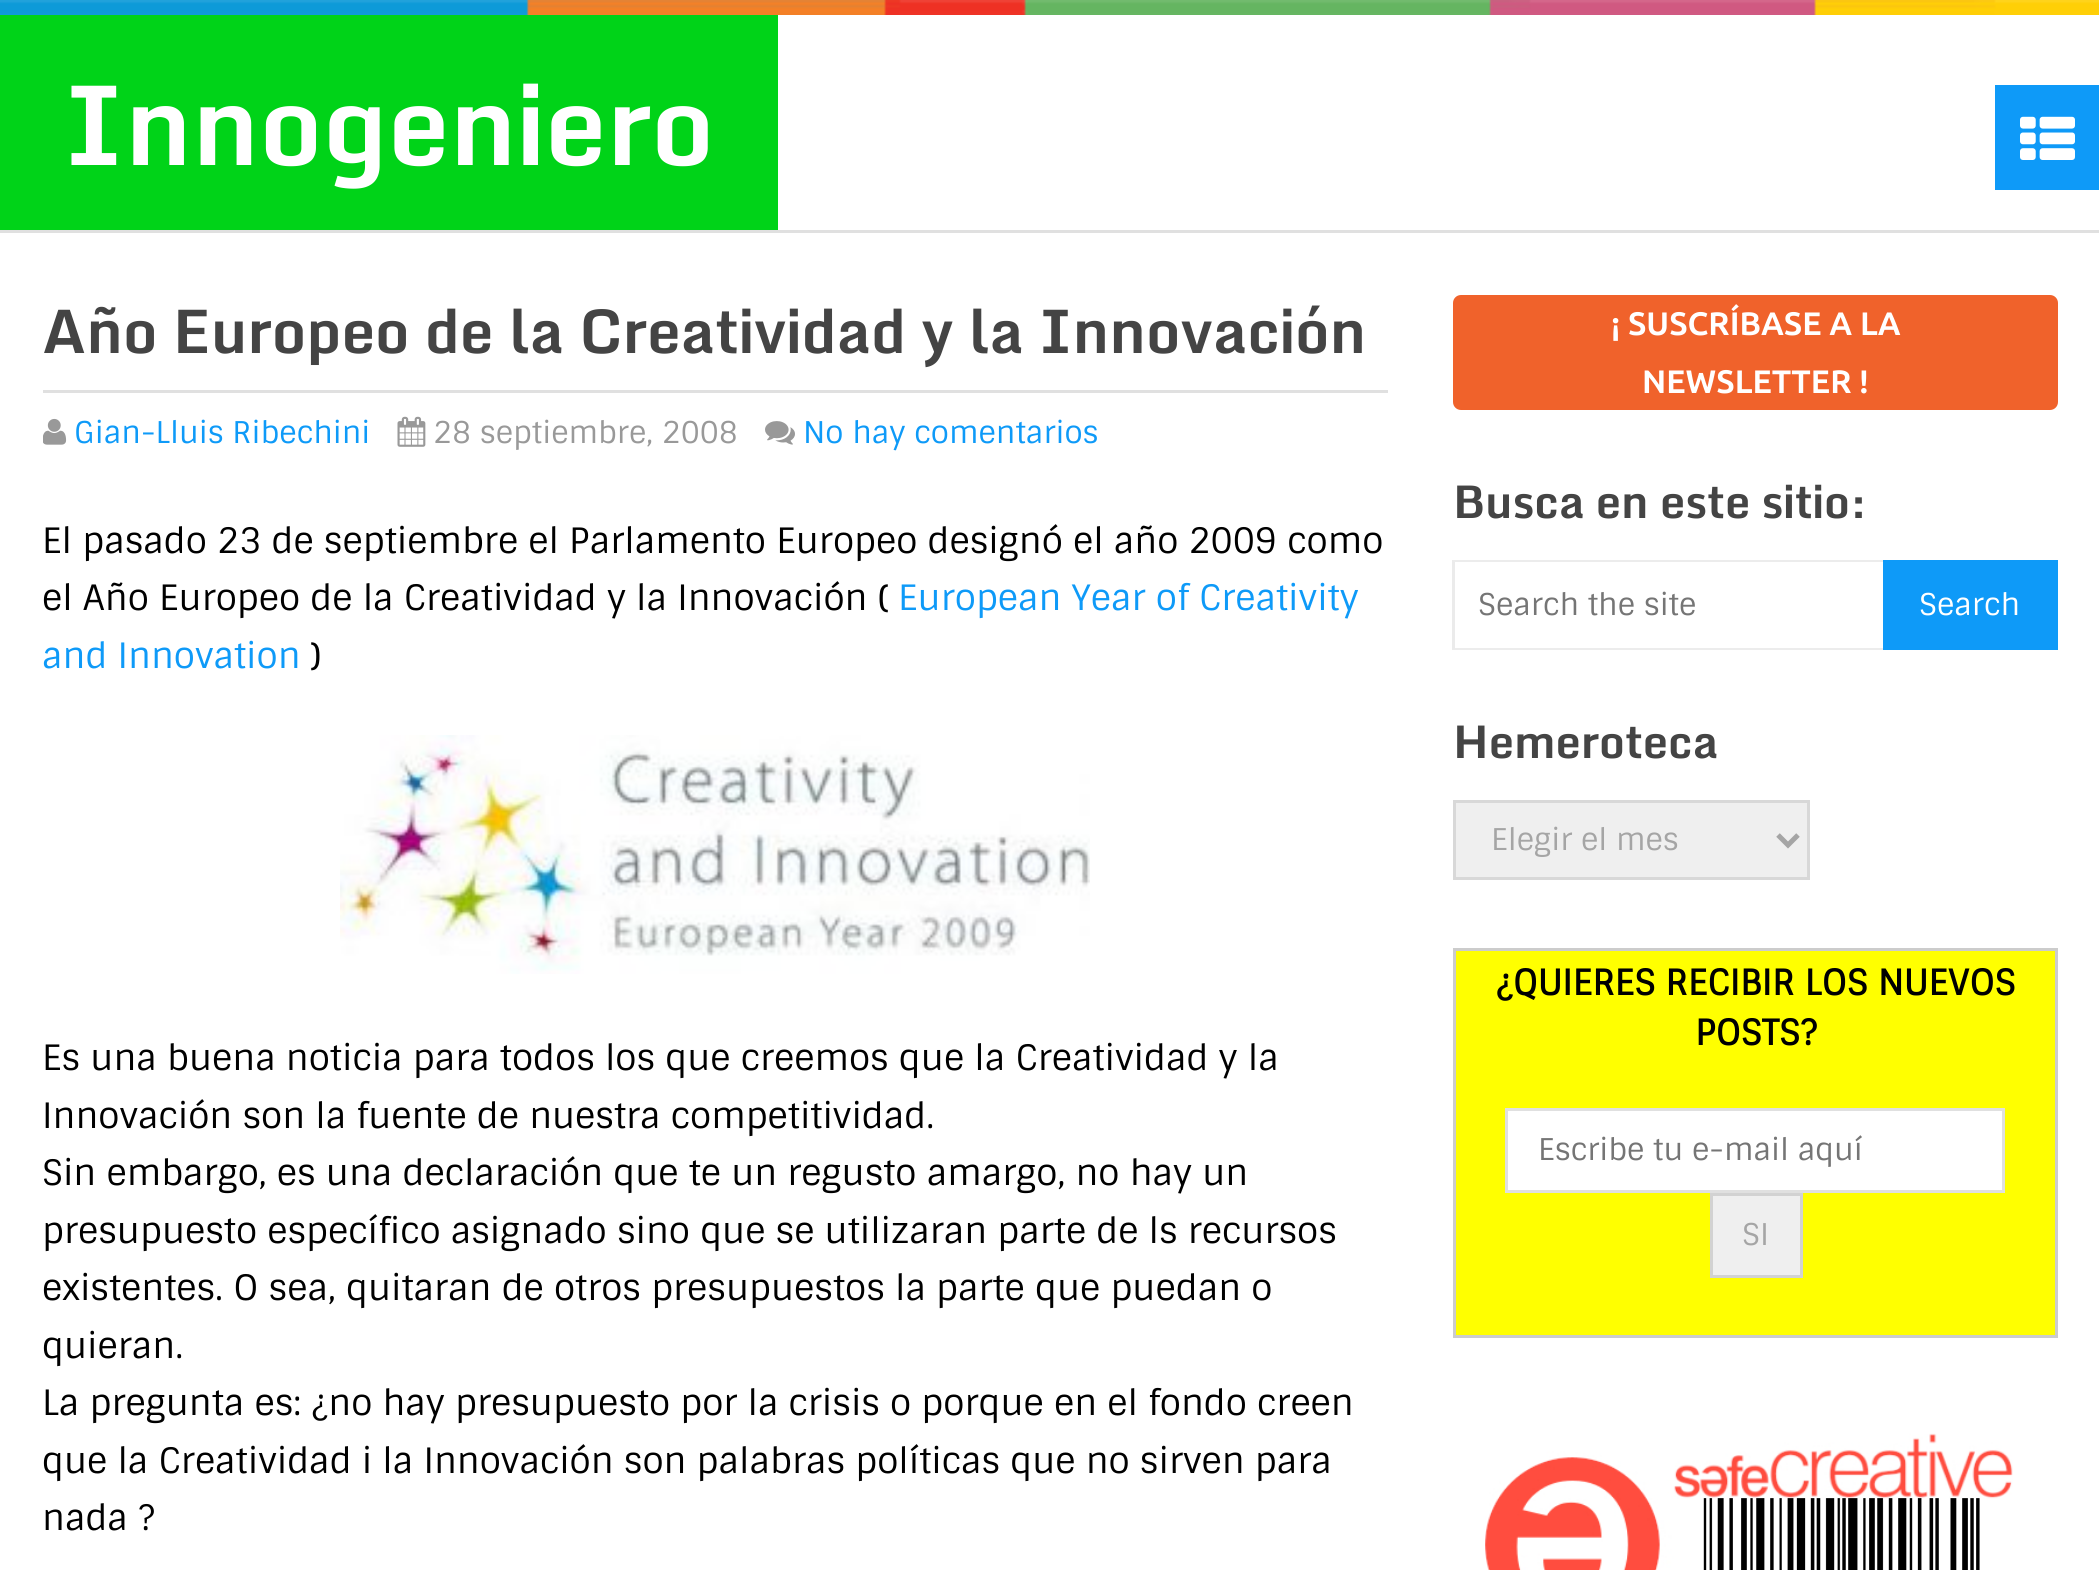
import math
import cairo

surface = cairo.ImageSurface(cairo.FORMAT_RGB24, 2099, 1570)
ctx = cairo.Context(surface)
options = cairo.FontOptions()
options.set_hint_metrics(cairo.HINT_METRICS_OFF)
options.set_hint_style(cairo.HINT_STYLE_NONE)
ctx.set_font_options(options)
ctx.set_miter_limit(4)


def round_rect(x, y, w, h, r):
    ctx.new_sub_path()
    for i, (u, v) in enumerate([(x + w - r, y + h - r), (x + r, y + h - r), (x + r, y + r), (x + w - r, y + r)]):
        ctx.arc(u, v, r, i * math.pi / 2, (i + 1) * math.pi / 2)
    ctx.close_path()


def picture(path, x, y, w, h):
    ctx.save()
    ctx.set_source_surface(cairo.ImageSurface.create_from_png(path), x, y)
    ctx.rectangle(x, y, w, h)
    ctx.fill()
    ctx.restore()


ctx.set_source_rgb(1, 1, 1)
ctx.paint()
ctx.set_source_rgb(0.878, 0.878, 0.878)
ctx.rectangle(0, 230, 2099, 3)
ctx.fill()
picture("img1.png", 0, 0, 2099, 15)
ctx.set_source_rgb(0, 0.827, 0.094)
ctx.rectangle(0, 15, 778, 215)
ctx.fill()
ctx.select_font_face("Monda", cairo.FONT_SLANT_NORMAL, cairo.FONT_WEIGHT_BOLD)
ctx.set_font_size(110)
ctx.set_source_rgb(1, 1, 1)
ctx.move_to(63, 165)
ctx.show_text("Innogeniero")
ctx.set_source_rgb(0.055, 0.604, 0.969)
ctx.rectangle(1995, 85, 104, 105)
ctx.fill()
picture("img2.png", 2020, 116, 55, 44)
ctx.set_source_rgb(0.878, 0.878, 0.878)
ctx.rectangle(43, 390, 1345, 3)
ctx.fill()
ctx.set_font_size(60)
ctx.set_source_rgb(0.267, 0.267, 0.267)
ctx.move_to(42, 353)
ctx.show_text("Año Europeo de la Creatividad y la Innovación")
picture("img3.png", 43, 418, 24, 27)
ctx.select_font_face("Sintony")
ctx.set_font_size(30)
ctx.set_source_rgb(0.055, 0.604, 0.969)
ctx.move_to(74, 443)
ctx.show_text("Gian-Lluis Ribechini")
picture("img4.png", 397, 416, 29, 31)
ctx.set_source_rgb(0.6, 0.6, 0.6)
ctx.move_to(433, 443)
ctx.show_text("28 septiembre, 2008")
picture("img5.png", 765, 421, 30, 24)
ctx.set_source_rgb(0.055, 0.604, 0.969)
ctx.move_to(803, 443)
ctx.show_text("No hay comentarios")
ctx.set_font_size(35)
ctx.set_source_rgb(0, 0, 0)
ctx.move_to(42, 553)
ctx.show_text("El pasado 23 de septiembre el Parlamento Europeo designó el año 2009 como")
ctx.move_to(42, 610)
ctx.show_text("el Año Europeo de la Creatividad y la Innovación (")
ctx.set_source_rgb(0.055, 0.604, 0.969)
ctx.move_to(898, 610)
ctx.show_text("European Year of Creativity")
ctx.move_to(42, 668)
ctx.show_text("and Innovation")
ctx.set_source_rgb(0, 0, 0)
ctx.move_to(311, 668)
ctx.show_text(")")
picture("img6.png", 340, 735, 750, 239)
ctx.move_to(42, 1070)
ctx.show_text("Es una buena noticia para todos los que creemos que la Creatividad y la")
ctx.move_to(42, 1128)
ctx.show_text("Innovación son la fuente de nuestra competitividad.")
ctx.move_to(42, 1185)
ctx.show_text("Sin embargo, es una declaración que te un regusto amargo, no hay un")
ctx.move_to(42, 1243)
ctx.show_text("presupuesto específico asignado sino que se utilizaran parte de ls recursos")
ctx.move_to(42, 1300)
ctx.show_text("existentes. O sea, quitaran de otros presupuestos la parte que puedan o")
ctx.move_to(42, 1358)
ctx.show_text("quieran.")
ctx.move_to(42, 1415)
ctx.show_text("La pregunta es: ¿no hay presupuesto por la crisis o porque en el fondo creen")
ctx.move_to(42, 1473)
ctx.show_text("que la Creatividad i la Innovación son palabras políticas que no sirven para")
ctx.move_to(42, 1530)
ctx.show_text("nada ?")
ctx.set_source_rgb(0.941, 0.384, 0.169)
round_rect(1453, 295, 605, 115, 8)
ctx.fill()
ctx.select_font_face("Ubuntu", cairo.FONT_SLANT_NORMAL, cairo.FONT_WEIGHT_BOLD)
ctx.set_font_size(32.5)
ctx.set_source_rgb(1, 1, 1)
ctx.move_to(1611, 335)
ctx.show_text("¡ SUSCRÍBASE A LA")
ctx.move_to(1642, 393)
ctx.show_text("NEWSLETTER !")
ctx.select_font_face("Monda", cairo.FONT_SLANT_NORMAL, cairo.FONT_WEIGHT_BOLD)
ctx.set_font_size(45)
ctx.set_source_rgb(0.267, 0.267, 0.267)
ctx.move_to(1453, 518)
ctx.show_text("Busca en este sitio:")
ctx.set_source_rgb(0.922, 0.922, 0.922)
ctx.new_path()
ctx.move_to(1452, 560)
ctx.line_to(1895, 560)
ctx.line_to(1895, 562)
ctx.line_to(1455, 562)
ctx.close_path()
ctx.fill()
ctx.new_path()
ctx.move_to(1895, 650)
ctx.line_to(1452, 650)
ctx.line_to(1455, 648)
ctx.line_to(1895, 648)
ctx.close_path()
ctx.fill()
ctx.set_source_rgba(0, 0, 0, 0.08)
ctx.new_path()
ctx.move_to(1452, 650)
ctx.line_to(1452, 560)
ctx.line_to(1455, 562)
ctx.line_to(1455, 648)
ctx.close_path()
ctx.fill()
ctx.select_font_face("Sintony")
ctx.set_font_size(30)
ctx.set_source_rgb(0.459, 0.459, 0.459)
ctx.move_to(1478, 615)
ctx.show_text("Search the site")
ctx.set_source_rgb(0.055, 0.604, 0.969)
ctx.rectangle(1883, 560, 175, 90)
ctx.fill()
ctx.set_source_rgb(1, 1, 1)
ctx.move_to(1919, 615)
ctx.show_text("Search")
ctx.select_font_face("Monda", cairo.FONT_SLANT_NORMAL, cairo.FONT_WEIGHT_BOLD)
ctx.set_font_size(45)
ctx.set_source_rgb(0.267, 0.267, 0.267)
ctx.move_to(1453, 758)
ctx.show_text("Hemeroteca")
ctx.set_source_rgb(0.937, 0.937, 0.937)
ctx.rectangle(1454.5, 801.5, 354, 77)
ctx.fill_preserve()
ctx.set_source_rgb(0.847, 0.847, 0.847)
ctx.set_line_width(3)
ctx.stroke()
ctx.new_path()
ctx.move_to(1778, 835)
ctx.line_to(1788, 845)
ctx.line_to(1798, 835)
ctx.set_source_rgb(0.647, 0.647, 0.647)
ctx.set_line_width(5)
ctx.stroke()
ctx.select_font_face("Sintony")
ctx.set_font_size(30)
ctx.move_to(1491, 850)
ctx.show_text("Elegir el mes")
ctx.set_source_rgb(1, 1, 0)
ctx.rectangle(1454.5, 949.5, 602, 387)
ctx.fill_preserve()
ctx.set_source_rgb(0.8, 0.8, 0.8)
ctx.set_line_width(3)
ctx.stroke()
ctx.select_font_face("Sintony", cairo.FONT_SLANT_NORMAL, cairo.FONT_WEIGHT_BOLD)
ctx.set_font_size(35)
ctx.set_source_rgb(0, 0, 0)
ctx.move_to(1496, 995)
ctx.show_text("¿QUIERES RECIBIR LOS NUEVOS")
ctx.move_to(1695, 1045)
ctx.show_text("POSTS?")
ctx.set_source_rgb(1, 1, 1)
ctx.rectangle(1506.5, 1109.5, 497, 82)
ctx.fill_preserve()
ctx.set_source_rgb(0.878, 0.878, 0.878)
ctx.stroke()
ctx.select_font_face("Sintony")
ctx.set_font_size(30)
ctx.set_source_rgb(0.459, 0.459, 0.459)
ctx.move_to(1538, 1160)
ctx.show_text("Escribe tu e-mail aquí")
ctx.set_source_rgb(0.937, 0.937, 0.937)
ctx.rectangle(1711.5, 1194.5, 90, 82)
ctx.fill_preserve()
ctx.set_source_rgb(0.824, 0.824, 0.824)
ctx.stroke()
ctx.set_source_rgb(0.647, 0.647, 0.647)
ctx.move_to(1742, 1245)
ctx.show_text("SI")
picture("img7.png", 1485, 1433, 528, 137)
surface.write_to_png("page.png")
